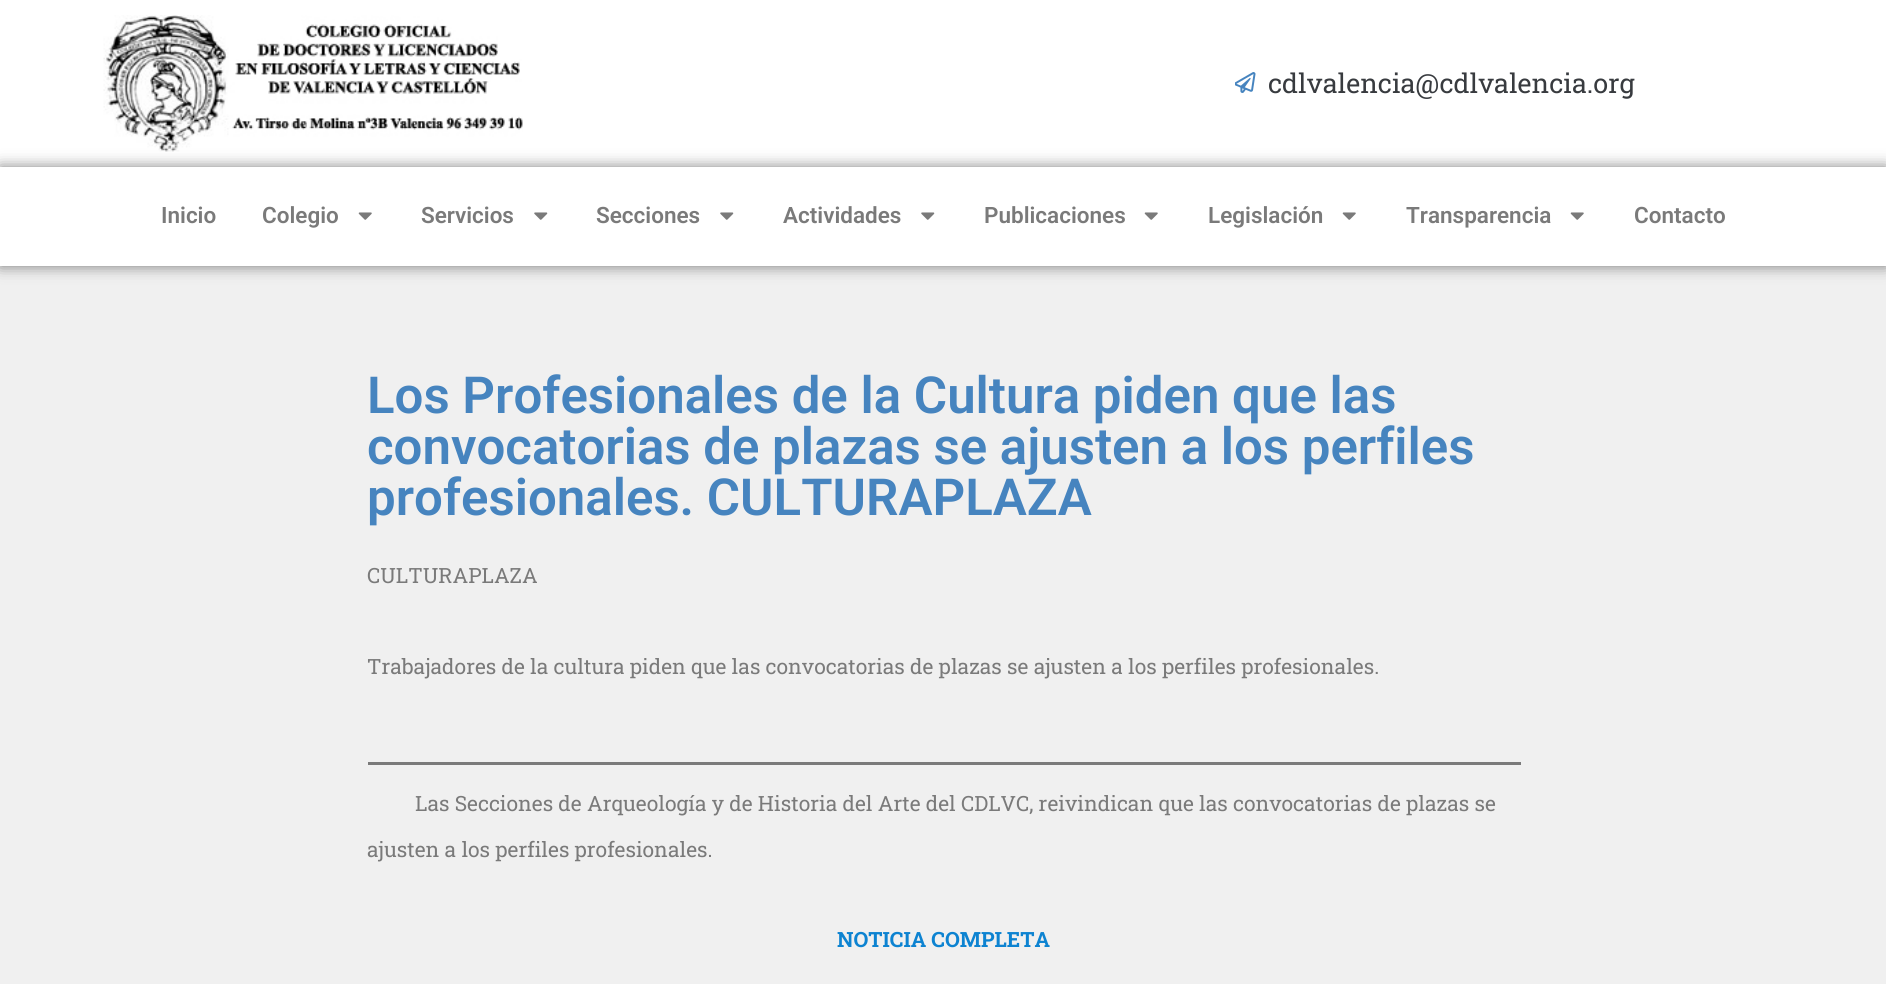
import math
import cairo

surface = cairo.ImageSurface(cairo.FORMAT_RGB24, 1886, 984)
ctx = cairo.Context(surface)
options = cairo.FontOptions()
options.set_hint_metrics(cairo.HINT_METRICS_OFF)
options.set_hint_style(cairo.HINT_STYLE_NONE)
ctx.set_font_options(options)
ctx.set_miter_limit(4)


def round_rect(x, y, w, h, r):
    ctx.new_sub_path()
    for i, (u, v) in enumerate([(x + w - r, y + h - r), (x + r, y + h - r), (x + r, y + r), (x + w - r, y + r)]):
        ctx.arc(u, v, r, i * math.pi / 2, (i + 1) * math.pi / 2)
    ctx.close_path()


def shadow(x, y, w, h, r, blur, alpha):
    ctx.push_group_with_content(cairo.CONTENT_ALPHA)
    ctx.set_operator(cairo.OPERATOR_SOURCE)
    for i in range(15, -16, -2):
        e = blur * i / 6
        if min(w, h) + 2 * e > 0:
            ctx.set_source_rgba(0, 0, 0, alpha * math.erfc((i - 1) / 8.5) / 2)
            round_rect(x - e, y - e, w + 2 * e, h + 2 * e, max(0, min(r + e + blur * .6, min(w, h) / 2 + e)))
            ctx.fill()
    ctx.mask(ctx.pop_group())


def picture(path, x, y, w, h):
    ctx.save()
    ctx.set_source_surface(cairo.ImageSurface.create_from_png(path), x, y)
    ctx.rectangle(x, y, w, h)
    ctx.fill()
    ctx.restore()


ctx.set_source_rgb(0.941, 0.941, 0.941)
ctx.paint()
ctx.set_source_rgb(1, 1, 1)
ctx.rectangle(0, 0, 1886, 167)
ctx.fill()
picture("img1.png", 103, 15, 420, 137)
picture("img2.png", 1235, 72, 21, 21)
ctx.select_font_face("Roboto Slab")
ctx.set_font_size(27)
ctx.set_source_rgb(0.22, 0.231, 0.247)
ctx.move_to(1268, 93)
ctx.show_text("cdlvalencia@cdlvalencia.org")
ctx.set_source_rgb(0, 0, 0)
shadow(0, 167, 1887, 99, 0, 7.5, 0.5)
ctx.set_source_rgb(1, 1, 1)
ctx.rectangle(0, 167, 1886, 99)
ctx.fill()
ctx.select_font_face("Roboto SemiBold")
ctx.set_font_size(22.5)
ctx.set_source_rgb(0.478, 0.478, 0.478)
ctx.move_to(161, 223)
ctx.show_text("Inicio")
ctx.move_to(262, 223)
ctx.show_text("Colegio")
picture("img3.png", 358, 212, 14, 8)
ctx.move_to(421, 223)
ctx.show_text("Servicios")
picture("img4.png", 534, 212, 14, 8)
ctx.move_to(596, 223)
ctx.show_text("Secciones")
picture("img4.png", 720, 212, 14, 8)
ctx.move_to(783, 223)
ctx.show_text("Actividades")
picture("img4.png", 921, 212, 14, 8)
ctx.move_to(984, 223)
ctx.show_text("Publicaciones")
picture("img3.png", 1144, 212, 14, 8)
ctx.move_to(1208, 223)
ctx.show_text("Legislación")
picture("img3.png", 1342, 212, 14, 8)
ctx.move_to(1406, 223)
ctx.show_text("Transparencia")
picture("img3.png", 1570, 212, 14, 8)
ctx.move_to(1634, 223)
ctx.show_text("Contacto")
ctx.set_font_size(51)
ctx.set_source_rgb(0.275, 0.518, 0.749)
ctx.move_to(367, 413)
ctx.show_text("Los Profesionales de la Cultura piden que las")
ctx.move_to(367, 464)
ctx.show_text("convocatorias de plazas se ajusten a los perfiles")
ctx.move_to(367, 515)
ctx.show_text("profesionales. CULTURAPLAZA")
ctx.select_font_face("Roboto Slab")
ctx.set_font_size(21)
ctx.set_source_rgb(0.478, 0.478, 0.478)
ctx.move_to(367, 583)
ctx.show_text("CULTURAPLAZA")
ctx.move_to(367, 674)
ctx.show_text("Trabajadores de la cultura piden que las convocatorias de plazas se ajusten a los perfiles profesionales.")
ctx.rectangle(368, 762, 1153, 3)
ctx.fill()
ctx.move_to(415, 811)
ctx.show_text("Las Secciones de Arqueología y de Historia del Arte del CDLVC, reivindican que las convocatorias de plazas se")
ctx.move_to(367, 857)
ctx.show_text("ajusten a los perfiles profesionales.")
ctx.select_font_face("Roboto Slab", cairo.FONT_SLANT_NORMAL, cairo.FONT_WEIGHT_BOLD)
ctx.set_source_rgb(0.051, 0.514, 0.82)
ctx.move_to(837, 947)
ctx.show_text("NOTICIA COMPLETA")
surface.write_to_png("page.png")
